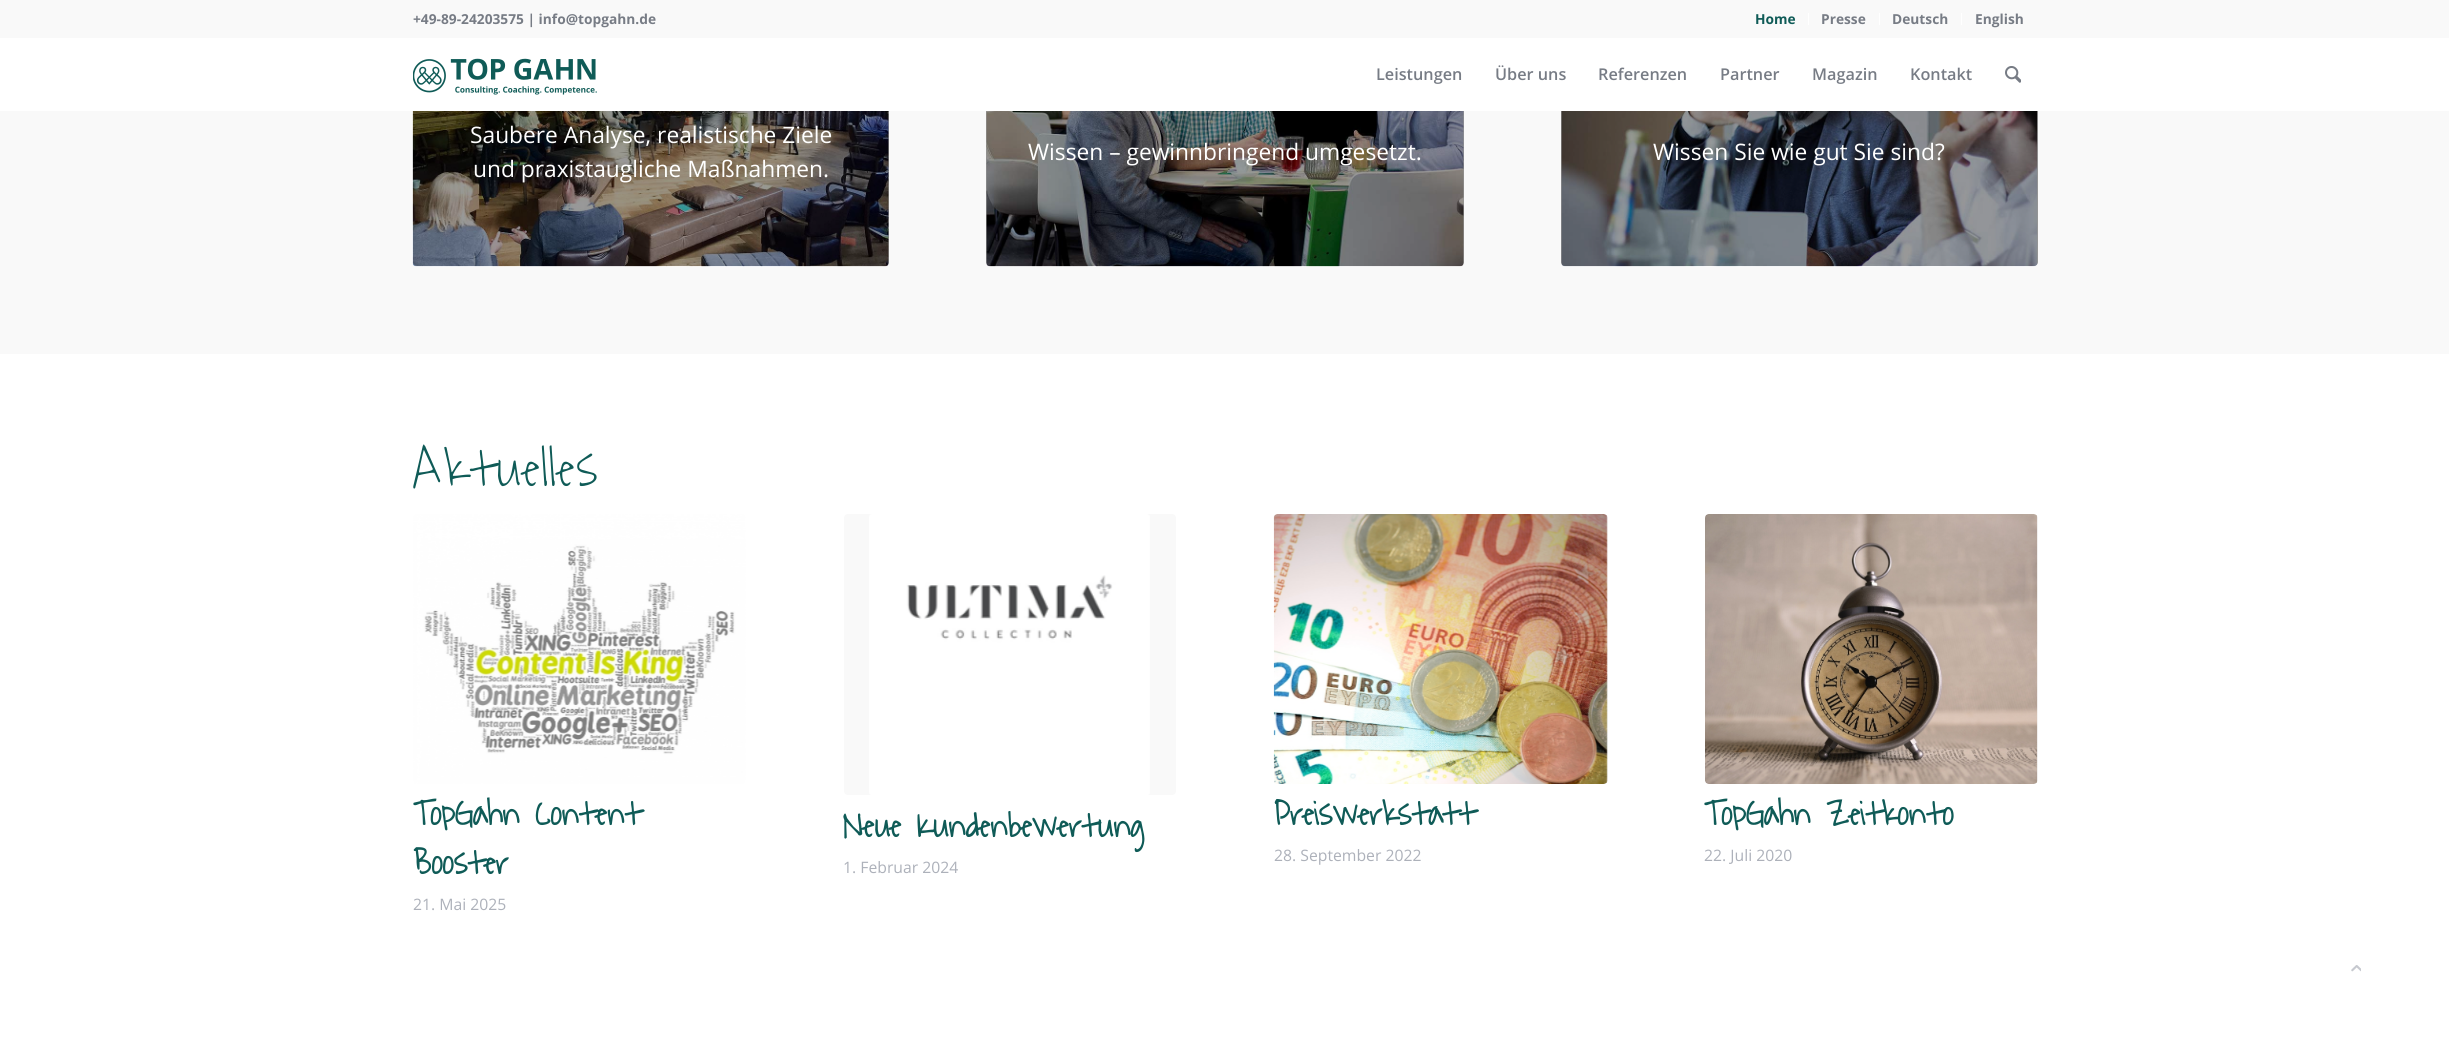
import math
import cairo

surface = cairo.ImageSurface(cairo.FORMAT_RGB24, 2449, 1060)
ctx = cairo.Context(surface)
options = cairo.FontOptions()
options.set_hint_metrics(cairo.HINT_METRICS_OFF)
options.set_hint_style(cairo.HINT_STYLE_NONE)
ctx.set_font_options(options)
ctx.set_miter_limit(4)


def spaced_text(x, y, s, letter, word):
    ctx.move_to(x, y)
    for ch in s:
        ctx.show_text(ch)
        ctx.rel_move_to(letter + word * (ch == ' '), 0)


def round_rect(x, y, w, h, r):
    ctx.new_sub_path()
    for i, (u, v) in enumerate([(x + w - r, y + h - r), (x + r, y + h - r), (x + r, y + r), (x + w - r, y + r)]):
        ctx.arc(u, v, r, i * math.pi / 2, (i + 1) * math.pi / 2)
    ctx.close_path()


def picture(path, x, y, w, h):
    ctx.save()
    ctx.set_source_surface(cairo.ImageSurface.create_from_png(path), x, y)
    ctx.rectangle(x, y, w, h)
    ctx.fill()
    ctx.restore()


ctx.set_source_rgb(1, 1, 1)
ctx.paint()
ctx.set_source_rgb(0.973, 0.973, 0.973)
ctx.rectangle(0, 111, 2449, 243)
ctx.fill()
picture("img3.png", 412, 111, 477, 156)
ctx.set_source_rgba(0, 0, 0, 0.4)
round_rect(413, -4, 476, 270, 4)
ctx.fill()
picture("img4.png", 986, 111, 478, 156)
round_rect(986, -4, 478, 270, 4)
ctx.fill()
picture("img5.png", 1561, 111, 477, 156)
round_rect(1561, -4, 477, 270, 4)
ctx.fill()
ctx.set_source_rgb(0.973, 0.973, 0.973)
ctx.rectangle(0, 0, 2449, 38)
ctx.fill()
ctx.select_font_face("Open Sans", cairo.FONT_SLANT_NORMAL, cairo.FONT_WEIGHT_BOLD)
ctx.set_font_size(13.75)
ctx.set_source_rgb(0.467, 0.486, 0.522)
ctx.move_to(413, 24)
ctx.show_text("+49-89-24203575 | info@topgahn.de")
ctx.set_source_rgb(1, 1, 1)
ctx.rectangle(1808, 13, 1, 12)
ctx.fill()
ctx.set_source_rgb(0.059, 0.357, 0.341)
ctx.move_to(1755, 24)
ctx.show_text("Home")
ctx.set_source_rgb(1, 1, 1)
ctx.rectangle(1879, 13, 1, 12)
ctx.fill()
ctx.set_source_rgb(0.467, 0.486, 0.522)
ctx.move_to(1821, 24)
ctx.show_text("Presse")
ctx.set_source_rgb(1, 1, 1)
ctx.rectangle(1961, 13, 1, 12)
ctx.fill()
ctx.set_source_rgb(0.467, 0.486, 0.522)
ctx.move_to(1892, 24)
ctx.show_text("Deutsch")
ctx.move_to(1975, 24)
ctx.show_text("English")
ctx.set_source_rgb(1, 1, 1)
ctx.rectangle(413, 38, 1625, 73)
ctx.fill()
picture("img1.png", 413, 58, 184, 37)
ctx.select_font_face("Open Sans SemiBold")
ctx.set_font_size(16.25)
ctx.set_source_rgb(0.467, 0.486, 0.522)
ctx.move_to(1376, 80)
ctx.show_text("Leistungen")
ctx.move_to(1495, 80)
ctx.show_text("Über uns")
ctx.move_to(1598, 80)
ctx.show_text("Referenzen")
ctx.move_to(1720, 80)
ctx.show_text("Partner")
ctx.move_to(1812, 80)
ctx.show_text("Magazin")
ctx.move_to(1910, 80)
ctx.show_text("Kontakt")
picture("img2.png", 2005, 66, 16, 17)
ctx.select_font_face("Open Sans")
ctx.set_font_size(22.75)
ctx.set_source_rgb(1, 1, 1)
ctx.move_to(470, 143)
ctx.show_text("Saubere Analyse, realistische Ziele")
ctx.move_to(473, 177)
ctx.show_text("und praxistaugliche Maßnahmen.")
ctx.move_to(1028, 160)
ctx.show_text("Wissen – gewinnbringend umgesetzt.")
ctx.move_to(1653, 160)
ctx.show_text("Wissen Sie wie gut Sie sind?")
ctx.select_font_face("Waiting for the Sunrise Light")
ctx.set_font_size(55)
ctx.set_source_rgb(0.059, 0.357, 0.341)
spaced_text(413, 486, "Aktuelles", 1.25, 0)
picture("img6.png", 413, 514, 333, 270)
ctx.select_font_face("Waiting for the Sunrise", cairo.FONT_SLANT_NORMAL, cairo.FONT_WEIGHT_BOLD)
ctx.set_font_size(35)
ctx.move_to(413, 825)
ctx.show_text("TopGahn Content")
ctx.move_to(413, 874)
ctx.show_text("Booster")
ctx.select_font_face("Open Sans")
ctx.set_font_size(15.75)
ctx.set_source_rgb(0.678, 0.694, 0.729)
ctx.move_to(413, 910)
ctx.show_text("21. Mai 2025")
ctx.set_source_rgb(0.973, 0.973, 0.973)
round_rect(844, 514, 332, 281, 4)
ctx.fill()
picture("img7.png", 869, 514, 281, 281)
ctx.select_font_face("Waiting for the Sunrise", cairo.FONT_SLANT_NORMAL, cairo.FONT_WEIGHT_BOLD)
ctx.set_font_size(35)
ctx.set_source_rgb(0.059, 0.357, 0.341)
ctx.move_to(843, 837)
ctx.show_text("Neue Kundenbewertung")
ctx.select_font_face("Open Sans")
ctx.set_font_size(15.75)
ctx.set_source_rgb(0.678, 0.694, 0.729)
ctx.move_to(843, 873)
ctx.show_text("1. Februar 2024")
ctx.set_source_rgb(0.973, 0.973, 0.973)
round_rect(1274, 514, 334, 270, 4)
ctx.fill()
picture("img8.png", 1273, 514, 335, 270)
ctx.select_font_face("Waiting for the Sunrise", cairo.FONT_SLANT_NORMAL, cairo.FONT_WEIGHT_BOLD)
ctx.set_font_size(35)
ctx.set_source_rgb(0.059, 0.357, 0.341)
ctx.move_to(1274, 825)
ctx.show_text("Preiswerkstatt")
ctx.select_font_face("Open Sans")
ctx.set_font_size(15.75)
ctx.set_source_rgb(0.678, 0.694, 0.729)
ctx.move_to(1274, 861)
ctx.show_text("28. September 2022")
ctx.set_source_rgb(0.973, 0.973, 0.973)
round_rect(1705, 514, 333, 270, 4)
ctx.fill()
picture("img9.png", 1705, 514, 333, 270)
ctx.select_font_face("Waiting for the Sunrise", cairo.FONT_SLANT_NORMAL, cairo.FONT_WEIGHT_BOLD)
ctx.set_font_size(35)
ctx.set_source_rgb(0.059, 0.357, 0.341)
ctx.move_to(1704, 825)
ctx.show_text("TopGahn Zeitkonto")
ctx.select_font_face("Open Sans")
ctx.set_font_size(15.75)
ctx.set_source_rgb(0.678, 0.694, 0.729)
ctx.move_to(1704, 861)
ctx.show_text("22. Juli 2020")
picture("img10.png", 2351, 965, 10, 7)
surface.write_to_png("page.png")
